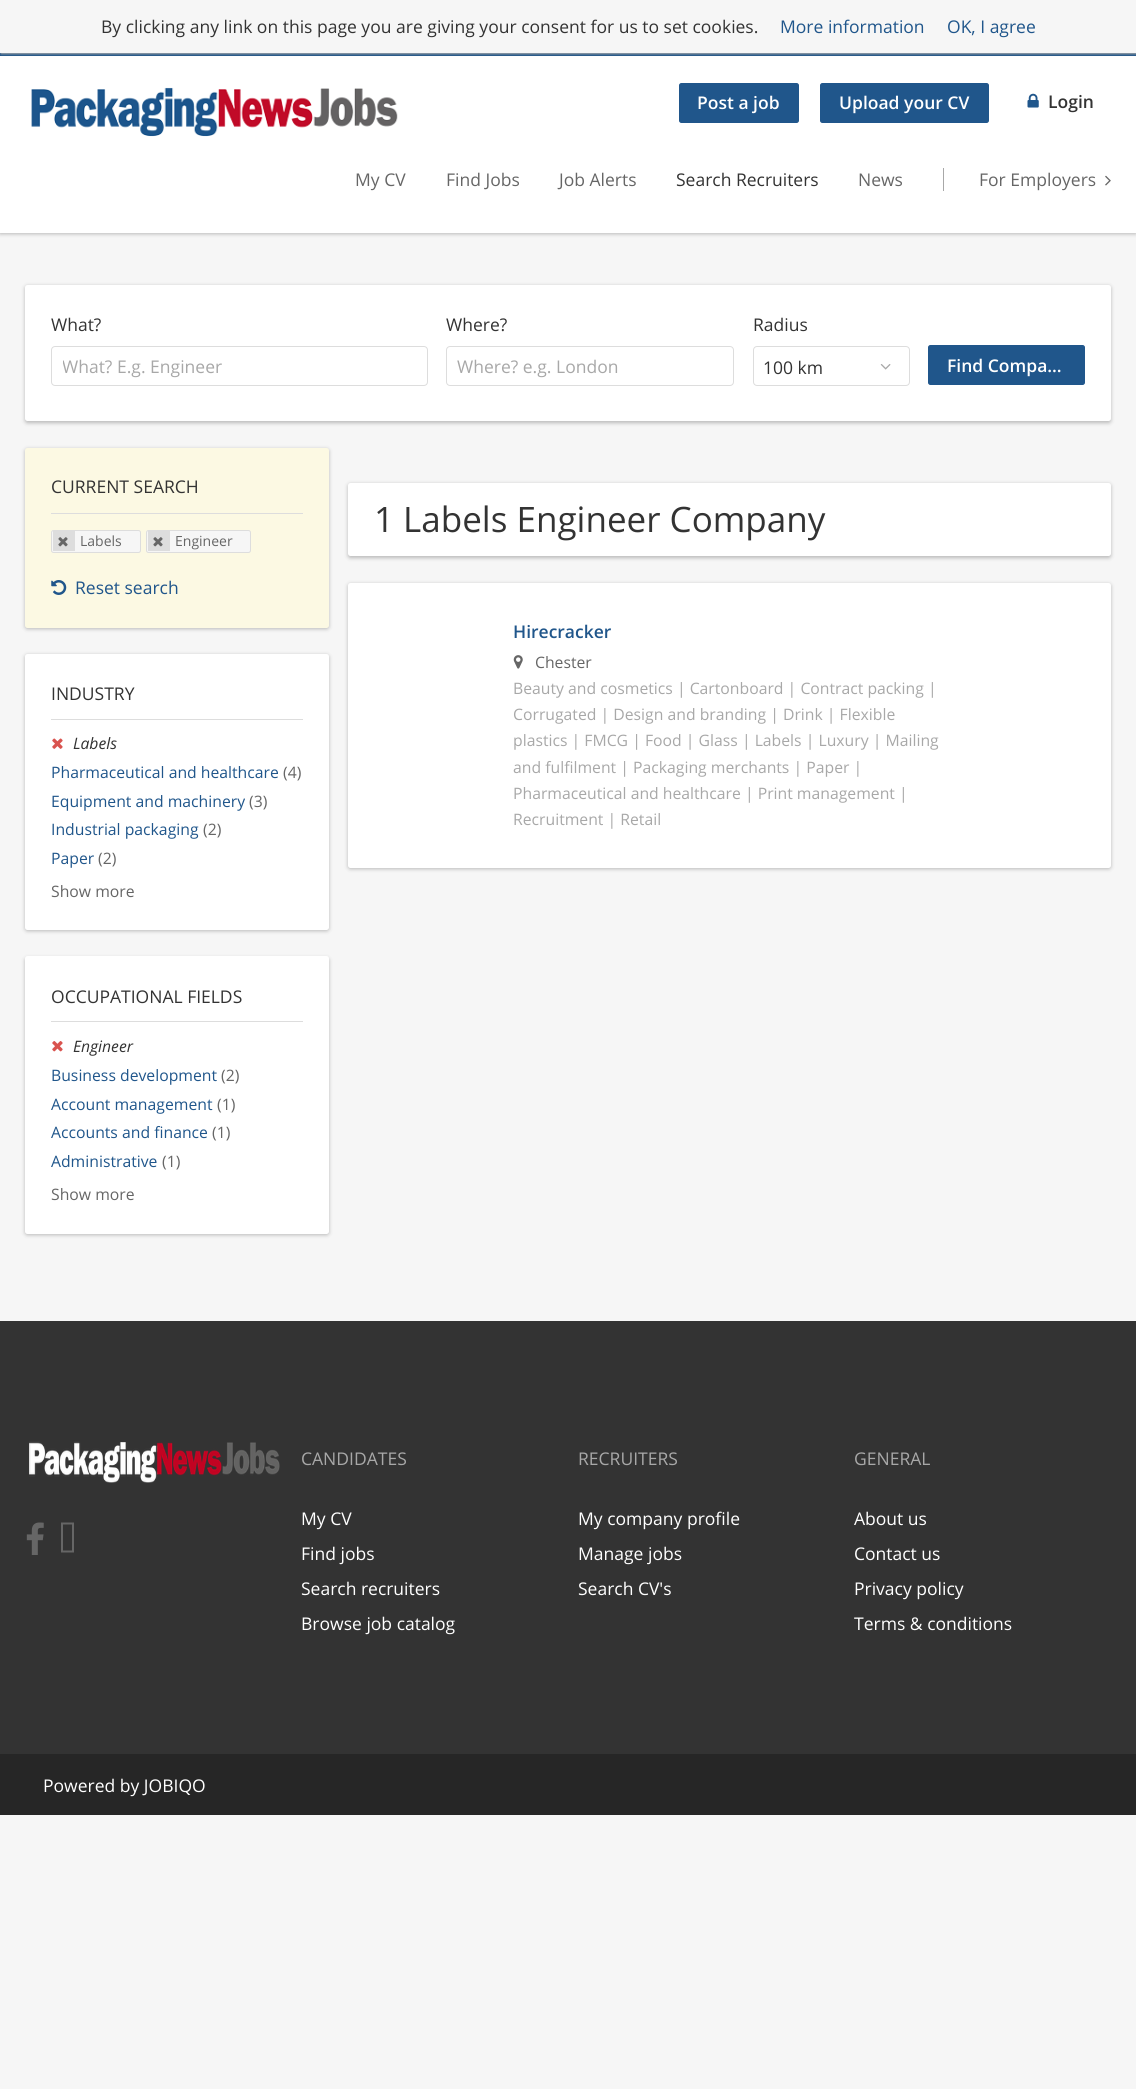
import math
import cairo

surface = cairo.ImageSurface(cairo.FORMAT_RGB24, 1136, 2089)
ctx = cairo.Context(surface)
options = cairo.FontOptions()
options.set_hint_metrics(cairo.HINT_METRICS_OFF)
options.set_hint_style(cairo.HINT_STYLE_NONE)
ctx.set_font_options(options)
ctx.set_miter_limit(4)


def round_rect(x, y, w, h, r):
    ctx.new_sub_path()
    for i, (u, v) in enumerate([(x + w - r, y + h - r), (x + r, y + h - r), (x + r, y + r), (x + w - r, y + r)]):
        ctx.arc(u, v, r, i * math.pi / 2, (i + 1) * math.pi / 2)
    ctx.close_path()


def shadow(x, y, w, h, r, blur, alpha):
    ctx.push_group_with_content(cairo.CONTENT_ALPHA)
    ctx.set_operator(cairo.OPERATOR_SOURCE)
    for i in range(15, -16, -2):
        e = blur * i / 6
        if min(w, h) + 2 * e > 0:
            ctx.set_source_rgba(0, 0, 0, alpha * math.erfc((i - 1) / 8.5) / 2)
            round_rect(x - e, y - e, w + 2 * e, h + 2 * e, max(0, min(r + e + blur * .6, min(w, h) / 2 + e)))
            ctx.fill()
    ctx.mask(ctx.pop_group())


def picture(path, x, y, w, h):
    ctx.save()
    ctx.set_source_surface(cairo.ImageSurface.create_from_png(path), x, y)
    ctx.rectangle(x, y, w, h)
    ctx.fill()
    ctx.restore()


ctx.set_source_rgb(0.961, 0.961, 0.961)
ctx.paint()
ctx.set_source_rgb(0.125, 0.337, 0.545)
ctx.rectangle(0, 53, 1136, 3)
ctx.fill()
ctx.set_source_rgb(0, 0, 0)
shadow(0, 58, 1136, 176, 0, 2, 0.25)
ctx.set_source_rgb(1, 1, 1)
ctx.rectangle(0, 56, 1136, 177)
ctx.fill()
ctx.set_source_rgb(0.659, 0.659, 0.659)
shadow(1, 1, 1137, 53, 0, 1, 1)
ctx.set_source_rgb(0.961, 0.961, 0.961)
ctx.rectangle(0, 0, 1136, 53)
ctx.fill()
ctx.select_font_face("Open Sans")
ctx.set_font_size(17.5)
ctx.set_source_rgb(0.2, 0.2, 0.2)
ctx.move_to(101, 33)
ctx.show_text("By clicking any link on this page you are giving your consent for us to set cookies.")
ctx.set_source_rgb(0.125, 0.337, 0.545)
ctx.move_to(780, 33)
ctx.show_text("More information")
ctx.move_to(947, 33)
ctx.show_text("OK, I agree")
picture("img1.png", 31, 87, 367, 50)
round_rect(679.5, 83.5, 119, 39, 2)
ctx.fill_preserve()
ctx.set_line_width(1)
ctx.stroke()
ctx.select_font_face("Open Sans SemiBold")
ctx.set_source_rgb(1, 1, 1)
ctx.move_to(697, 109)
ctx.show_text("Post a job")
ctx.set_source_rgb(0.125, 0.337, 0.545)
round_rect(820.5, 83.5, 168, 39, 2)
ctx.fill_preserve()
ctx.stroke()
ctx.set_source_rgb(1, 1, 1)
ctx.move_to(839, 109)
ctx.show_text("Upload your CV")
picture("img2.png", 1027, 93, 12, 15)
ctx.set_source_rgb(0.2, 0.2, 0.2)
ctx.move_to(1048, 108)
ctx.show_text("Login")
ctx.select_font_face("Open Sans")
ctx.set_source_rgb(0.4, 0.4, 0.4)
ctx.move_to(355, 186)
ctx.show_text("My CV")
ctx.move_to(446, 186)
ctx.show_text("Find Jobs")
ctx.move_to(559, 186)
ctx.show_text("Job Alerts")
ctx.set_source_rgb(0.2, 0.2, 0.2)
ctx.move_to(676, 186)
ctx.show_text("Search Recruiters")
ctx.set_source_rgb(0.4, 0.4, 0.4)
ctx.move_to(858, 186)
ctx.show_text("News")
ctx.set_source_rgb(0.659, 0.659, 0.659)
ctx.rectangle(943, 168, 1, 23)
ctx.fill()
ctx.set_source_rgb(0.4, 0.4, 0.4)
ctx.move_to(979, 186)
ctx.show_text("For Employers")
picture("img3.png", 1105, 175, 6, 11)
ctx.set_source_rgb(0, 0, 0)
shadow(25, 286, 1086, 137, 2.5, 2, 0.25)
ctx.set_source_rgb(1, 1, 1)
round_rect(25, 285, 1086, 136, 2.5)
ctx.fill()
ctx.set_source_rgb(0.2, 0.2, 0.2)
ctx.move_to(51, 331)
ctx.show_text("What?")
round_rect(51.5, 346.5, 376, 39, 3.5)
ctx.set_source_rgb(0.867, 0.867, 0.867)
ctx.stroke()
ctx.save()
ctx.rectangle(63, 354, 353, 24)
ctx.clip()
ctx.set_source_rgb(0.659, 0.659, 0.659)
ctx.move_to(62, 373)
ctx.show_text("What? E.g. Engineer")
ctx.restore()
ctx.set_source_rgb(0.2, 0.2, 0.2)
ctx.move_to(446, 331)
ctx.show_text("Where?")
round_rect(446.5, 346.5, 287, 39, 3.5)
ctx.set_source_rgb(0.867, 0.867, 0.867)
ctx.stroke()
ctx.set_source_rgb(0.659, 0.659, 0.659)
ctx.move_to(457, 373)
ctx.show_text("Where? e.g. London")
ctx.set_source_rgb(0.2, 0.2, 0.2)
ctx.move_to(753, 331)
ctx.show_text("Radius")
round_rect(753.5, 346.5, 156, 39, 3.5)
ctx.set_source_rgb(0.867, 0.867, 0.867)
ctx.stroke()
ctx.set_source_rgb(0.2, 0.2, 0.2)
ctx.move_to(763, 374)
ctx.show_text("100 km")
picture("img4.png", 880, 364, 11, 6)
ctx.set_source_rgb(0.125, 0.337, 0.545)
round_rect(928.5, 345.5, 156, 39, 2)
ctx.fill_preserve()
ctx.stroke()
ctx.select_font_face("Open Sans SemiBold")
ctx.set_source_rgb(1, 1, 1)
ctx.move_to(947, 372)
ctx.show_text("Find Compa…")
ctx.set_source_rgb(0, 0, 0)
shadow(25, 449, 304, 180, 2.5, 2, 0.25)
ctx.set_source_rgb(0.988, 0.973, 0.89)
round_rect(25, 448, 304, 180, 2.5)
ctx.fill()
ctx.set_source_rgb(0.867, 0.867, 0.867)
ctx.rectangle(51, 513, 252, 1)
ctx.fill()
ctx.select_font_face("Open Sans")
ctx.set_source_rgb(0.2, 0.2, 0.2)
ctx.move_to(51, 493)
ctx.show_text("CURRENT SEARCH")
ctx.set_source_rgb(0.961, 0.961, 0.961)
round_rect(51.5, 530.5, 89, 22, 2)
ctx.fill_preserve()
ctx.set_source_rgb(0.867, 0.867, 0.867)
ctx.stroke()
ctx.rectangle(53, 531, 22, 20)
ctx.fill()
picture("img5.png", 58, 537, 10, 10)
ctx.set_font_size(14)
ctx.set_source_rgb(0.4, 0.4, 0.4)
ctx.move_to(80, 546)
ctx.show_text("Labels")
ctx.set_source_rgb(0.961, 0.961, 0.961)
round_rect(146.5, 530.5, 104, 22, 2)
ctx.fill_preserve()
ctx.set_source_rgb(0.867, 0.867, 0.867)
ctx.stroke()
ctx.rectangle(148, 531, 22, 20)
ctx.fill()
picture("img5.png", 153, 537, 10, 10)
ctx.set_source_rgb(0.4, 0.4, 0.4)
ctx.move_to(175, 546)
ctx.show_text("Engineer")
picture("img6.png", 51, 580, 16, 15)
ctx.set_font_size(17.5)
ctx.set_source_rgb(0.125, 0.337, 0.545)
ctx.move_to(75, 594)
ctx.show_text("Reset search")
ctx.set_source_rgb(0, 0, 0)
shadow(25, 655, 304, 276, 2.5, 2, 0.25)
ctx.set_source_rgb(1, 1, 1)
round_rect(25, 654, 304, 276, 2.5)
ctx.fill()
ctx.set_source_rgb(0.867, 0.867, 0.867)
ctx.rectangle(51, 719, 252, 1)
ctx.fill()
ctx.set_source_rgb(0.2, 0.2, 0.2)
ctx.move_to(51, 700)
ctx.show_text("INDUSTRY")
picture("img7.png", 52, 738, 11, 11)
ctx.select_font_face("Open Sans", cairo.FONT_SLANT_ITALIC)
ctx.set_font_size(15.75)
ctx.move_to(73, 749)
ctx.show_text("Labels")
ctx.select_font_face("Open Sans")
ctx.set_source_rgb(0.125, 0.337, 0.545)
ctx.move_to(51, 778)
ctx.show_text("Pharmaceutical and healthcare")
ctx.set_source_rgb(0.4, 0.4, 0.4)
ctx.move_to(283, 778)
ctx.show_text("(4)")
ctx.set_source_rgb(0.125, 0.337, 0.545)
ctx.move_to(51, 807)
ctx.show_text("Equipment and machinery")
ctx.set_source_rgb(0.4, 0.4, 0.4)
ctx.move_to(249, 807)
ctx.show_text("(3)")
ctx.set_source_rgb(0.125, 0.337, 0.545)
ctx.move_to(51, 835)
ctx.show_text("Industrial packaging")
ctx.set_source_rgb(0.4, 0.4, 0.4)
ctx.move_to(203, 835)
ctx.show_text("(2)")
ctx.set_source_rgb(0.125, 0.337, 0.545)
ctx.move_to(51, 864)
ctx.show_text("Paper")
ctx.set_source_rgb(0.4, 0.4, 0.4)
ctx.move_to(98, 864)
ctx.show_text("(2)")
ctx.move_to(51, 897)
ctx.show_text("Show more")
ctx.set_source_rgb(0, 0, 0)
shadow(25, 958, 304, 277, 2.5, 2, 0.25)
ctx.set_source_rgb(1, 1, 1)
round_rect(25, 956, 304, 278, 2.5)
ctx.fill()
ctx.set_source_rgb(0.867, 0.867, 0.867)
ctx.rectangle(51, 1021, 252, 1)
ctx.fill()
ctx.set_font_size(17.5)
ctx.set_source_rgb(0.2, 0.2, 0.2)
ctx.move_to(51, 1003)
ctx.show_text("OCCUPATIONAL FIELDS")
picture("img8.png", 52, 1041, 11, 11)
ctx.select_font_face("Open Sans", cairo.FONT_SLANT_ITALIC)
ctx.set_font_size(15.75)
ctx.move_to(73, 1052)
ctx.show_text("Engineer")
ctx.select_font_face("Open Sans")
ctx.set_source_rgb(0.125, 0.337, 0.545)
ctx.move_to(51, 1081)
ctx.show_text("Business development")
ctx.set_source_rgb(0.4, 0.4, 0.4)
ctx.move_to(221, 1081)
ctx.show_text("(2)")
ctx.set_source_rgb(0.125, 0.337, 0.545)
ctx.move_to(51, 1110)
ctx.show_text("Account management")
ctx.set_source_rgb(0.4, 0.4, 0.4)
ctx.move_to(217, 1110)
ctx.show_text("(1)")
ctx.set_source_rgb(0.125, 0.337, 0.545)
ctx.move_to(51, 1138)
ctx.show_text("Accounts and finance")
ctx.set_source_rgb(0.4, 0.4, 0.4)
ctx.move_to(212, 1138)
ctx.show_text("(1)")
ctx.set_source_rgb(0.125, 0.337, 0.545)
ctx.move_to(51, 1167)
ctx.show_text("Administrative")
ctx.set_source_rgb(0.4, 0.4, 0.4)
ctx.move_to(162, 1167)
ctx.show_text("(1)")
ctx.move_to(51, 1200)
ctx.show_text("Show more")
ctx.set_source_rgb(0, 0, 0)
shadow(348, 484, 763, 74, 2.5, 2, 0.25)
ctx.set_source_rgb(1, 1, 1)
round_rect(348, 483, 763, 73, 2.5)
ctx.fill()
ctx.set_font_size(35)
ctx.set_source_rgb(0.2, 0.2, 0.2)
ctx.move_to(374, 532)
ctx.show_text("1 Labels Engineer Company")
ctx.set_source_rgb(0, 0, 0)
shadow(348, 584, 763, 285, 2.5, 2, 0.25)
ctx.set_source_rgb(1, 1, 1)
round_rect(348, 583, 763, 285, 2.5)
ctx.fill()
ctx.select_font_face("Open Sans SemiBold")
ctx.set_font_size(17.5)
ctx.set_source_rgb(0.125, 0.337, 0.545)
ctx.move_to(513, 638)
ctx.show_text("Hirecracker")
picture("img9.png", 513, 655, 10, 14)
ctx.select_font_face("Open Sans")
ctx.set_font_size(15.75)
ctx.set_source_rgb(0.4, 0.4, 0.4)
ctx.move_to(535, 668)
ctx.show_text("Chester")
ctx.set_source_rgb(0.659, 0.659, 0.659)
ctx.move_to(513, 694)
ctx.show_text("Beauty and cosmetics | Cartonboard | Contract packing |")
ctx.move_to(513, 720)
ctx.show_text("Corrugated | Design and branding | Drink | Flexible")
ctx.move_to(513, 746)
ctx.show_text("plastics | FMCG | Food | Glass | Labels | Luxury | Mailing")
ctx.move_to(513, 773)
ctx.show_text("and fulfilment | Packaging merchants | Paper |")
ctx.move_to(513, 799)
ctx.show_text("Pharmaceutical and healthcare | Print management |")
ctx.move_to(513, 825)
ctx.show_text("Recruitment | Retail")
ctx.set_source_rgb(0.2, 0.2, 0.2)
ctx.rectangle(0, 1321, 1136, 433)
ctx.fill()
picture("img10.png", 29, 1441, 251, 42)
picture("img11.png", 26, 1522, 18, 33)
ctx.set_source_rgb(0.4, 0.4, 0.4)
ctx.new_path()
ctx.move_to(63, 1550.5)
ctx.line_to(63, 1524.5)
ctx.line_to(72, 1524.5)
ctx.line_to(72, 1550.5)
ctx.close_path()
ctx.move_to(61, 1552.5)
ctx.line_to(74, 1552.5)
ctx.line_to(74, 1522.5)
ctx.line_to(61, 1522.5)
ctx.close_path()
ctx.fill()
ctx.set_font_size(17.5)
ctx.set_source_rgb(0.659, 0.659, 0.659)
ctx.move_to(301, 1465)
ctx.show_text("CANDIDATES")
ctx.set_source_rgb(1, 1, 1)
ctx.move_to(301, 1525)
ctx.show_text("My CV")
ctx.move_to(301, 1560)
ctx.show_text("Find jobs")
ctx.move_to(301, 1595)
ctx.show_text("Search recruiters")
ctx.move_to(301, 1630)
ctx.show_text("Browse job catalog")
ctx.set_source_rgb(0.659, 0.659, 0.659)
ctx.move_to(578, 1465)
ctx.show_text("RECRUITERS")
ctx.set_source_rgb(1, 1, 1)
ctx.move_to(578, 1525)
ctx.show_text("My company profile")
ctx.move_to(578, 1560)
ctx.show_text("Manage jobs")
ctx.move_to(578, 1595)
ctx.show_text("Search CV's")
ctx.set_source_rgb(0.659, 0.659, 0.659)
ctx.move_to(854, 1465)
ctx.show_text("GENERAL")
ctx.set_source_rgb(1, 1, 1)
ctx.move_to(854, 1525)
ctx.show_text("About us")
ctx.move_to(854, 1560)
ctx.show_text("Contact us")
ctx.move_to(854, 1595)
ctx.show_text("Privacy policy")
ctx.move_to(854, 1630)
ctx.show_text("Terms & conditions")
ctx.set_source_rgb(0.149, 0.149, 0.149)
ctx.rectangle(0, 1754, 1136, 61)
ctx.fill()
ctx.set_source_rgb(1, 1, 1)
ctx.move_to(43, 1792)
ctx.show_text("Powered by JOBIQO")
surface.write_to_png("page.png")
